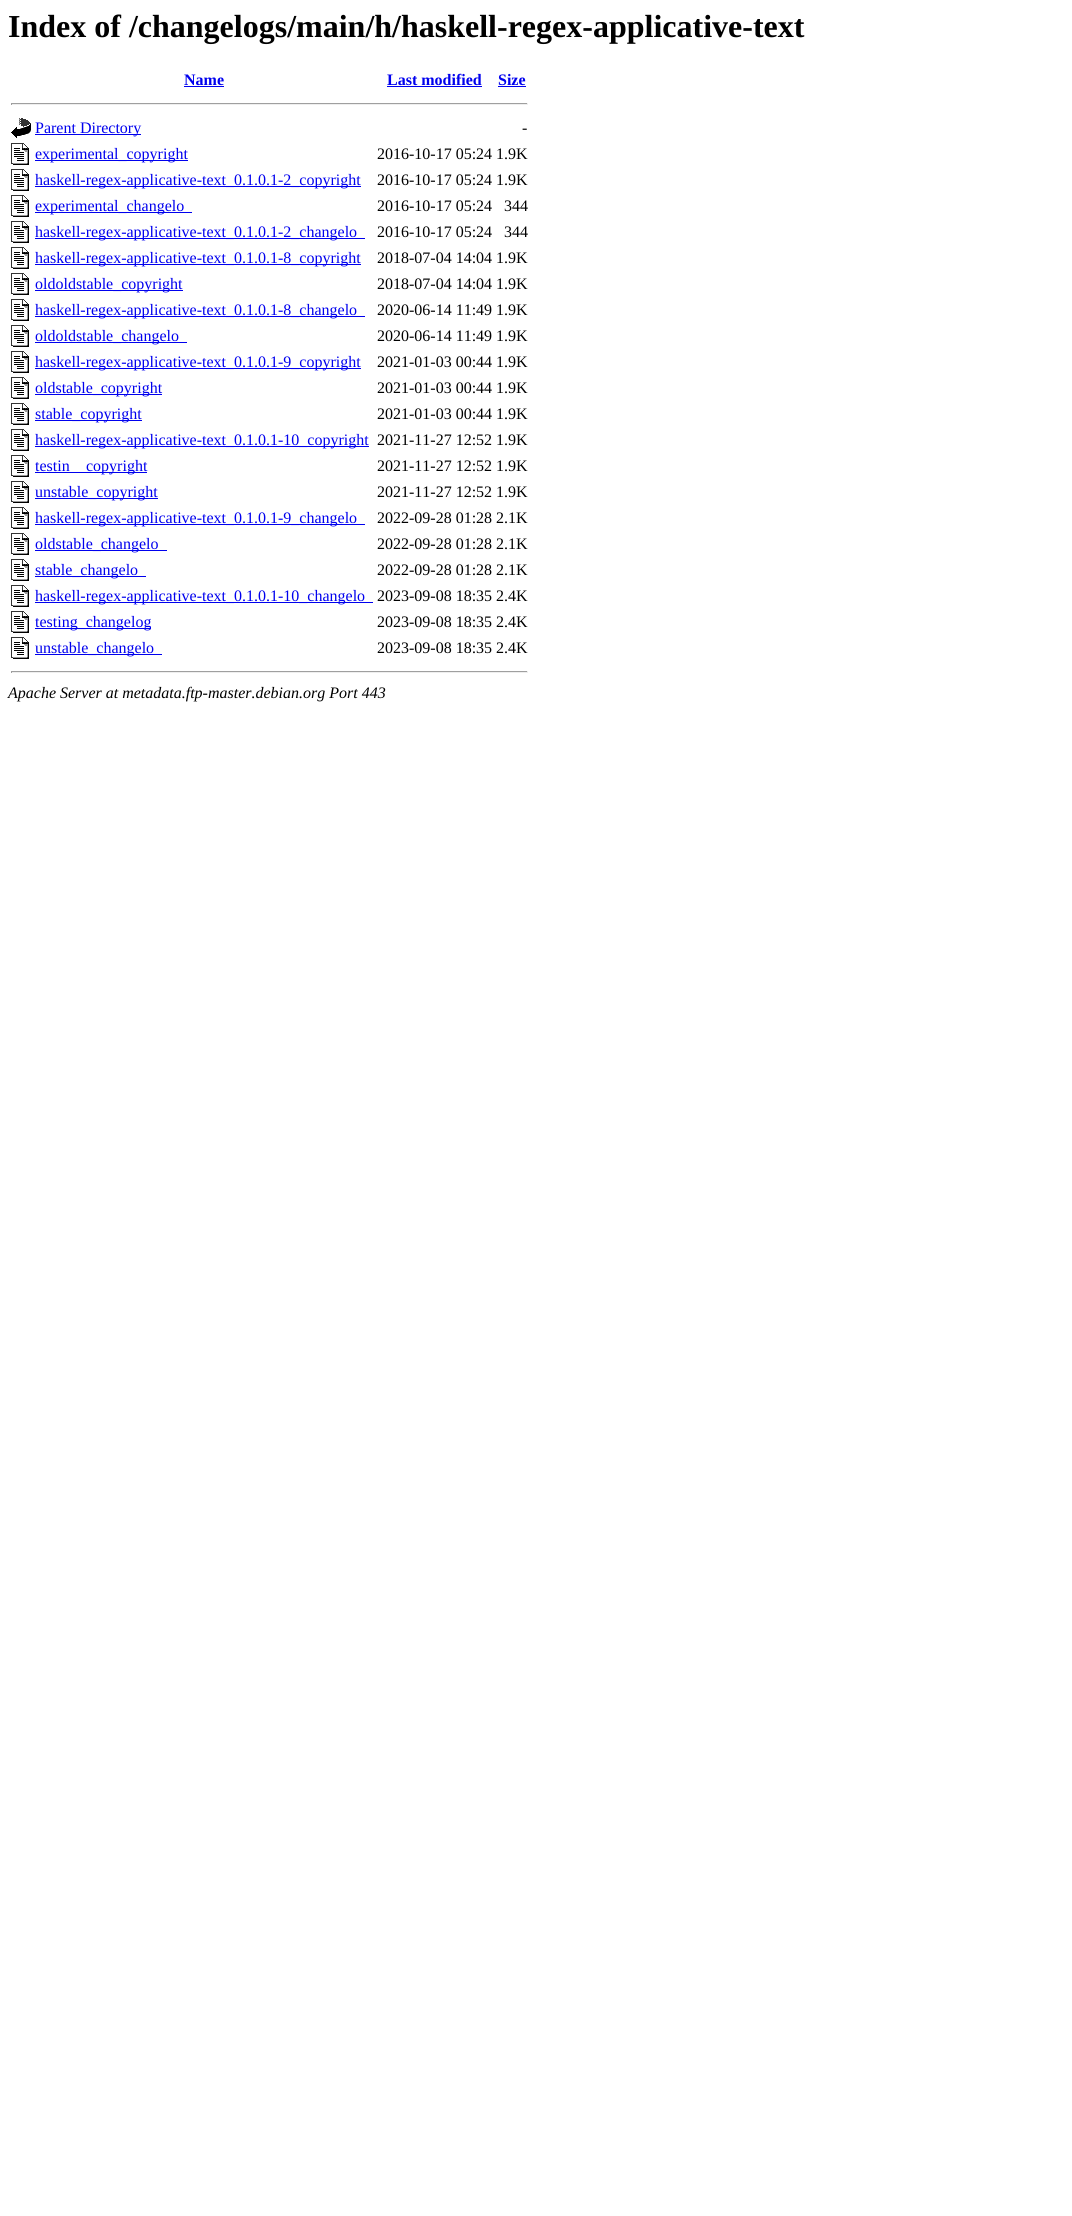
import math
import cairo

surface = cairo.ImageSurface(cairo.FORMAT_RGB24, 1072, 2216)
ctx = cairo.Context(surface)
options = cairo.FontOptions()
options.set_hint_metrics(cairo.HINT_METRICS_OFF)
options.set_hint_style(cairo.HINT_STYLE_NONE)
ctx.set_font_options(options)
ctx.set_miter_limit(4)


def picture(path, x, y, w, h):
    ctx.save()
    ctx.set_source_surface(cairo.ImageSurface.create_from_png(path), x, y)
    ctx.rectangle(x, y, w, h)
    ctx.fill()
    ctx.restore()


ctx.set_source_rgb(1, 1, 1)
ctx.paint()
ctx.select_font_face("Liberation Serif", cairo.FONT_SLANT_NORMAL, cairo.FONT_WEIGHT_BOLD)
ctx.set_font_size(32)
ctx.set_source_rgb(0, 0, 0)
ctx.move_to(8, 37)
ctx.show_text("Index of /changelogs/main/h/haskell-regex-applicative-text")
ctx.set_font_size(16)
ctx.set_source_rgb(0, 0, 0.933)
ctx.move_to(184, 85)
ctx.show_text("Name")
ctx.rectangle(184, 86, 40, 1)
ctx.fill()
ctx.move_to(387, 85)
ctx.show_text("Last modified")
ctx.rectangle(387, 86, 95, 1)
ctx.fill()
ctx.move_to(498, 85)
ctx.show_text("Size")
ctx.rectangle(498, 86, 28, 1)
ctx.fill()
ctx.set_source_rgb(0.624, 0.624, 0.624)
ctx.rectangle(11, 103, 517, 1)
ctx.fill()
ctx.set_source_rgb(0.933, 0.933, 0.933)
ctx.rectangle(527, 103, 1, 2)
ctx.fill()
ctx.rectangle(11, 104, 517, 1)
ctx.fill()
ctx.set_source_rgb(0.624, 0.624, 0.624)
ctx.rectangle(11, 103, 1, 2)
ctx.fill()
picture("img1.png", 11, 118, 20, 20)
ctx.set_source_rgb(0, 0, 0.933)
ctx.rectangle(35, 134, 106, 1)
ctx.fill()
ctx.select_font_face("Liberation Serif")
ctx.move_to(35, 133)
ctx.show_text("Parent Directory")
ctx.set_source_rgb(0, 0, 0)
ctx.move_to(522, 133)
ctx.show_text("-")
picture("img2.png", 11, 143, 18, 22)
ctx.set_source_rgb(0, 0, 0.933)
ctx.rectangle(35, 160, 153, 1)
ctx.fill()
ctx.move_to(35, 159)
ctx.show_text("experimental_copyright")
ctx.set_source_rgb(0, 0, 0)
ctx.move_to(377, 159)
ctx.show_text("2016-10-17 05:24 1.9K")
picture("img2.png", 11, 169, 18, 22)
ctx.set_source_rgb(0, 0, 0.933)
ctx.rectangle(35, 186, 326, 1)
ctx.fill()
ctx.move_to(35, 185)
ctx.show_text("haskell-regex-applicative-text_0.1.0.1-2_copyright")
ctx.set_source_rgb(0, 0, 0)
ctx.move_to(377, 185)
ctx.show_text("2016-10-17 05:24 1.9K")
picture("img2.png", 11, 195, 18, 22)
ctx.set_source_rgb(0, 0, 0.933)
ctx.rectangle(35, 212, 157, 1)
ctx.fill()
ctx.move_to(35, 211)
ctx.show_text("experimental_changelo")
ctx.set_source_rgb(0, 0, 0)
ctx.move_to(377, 211)
ctx.show_text("2016-10-17 05:24")
ctx.move_to(504, 211)
ctx.show_text("344")
picture("img2.png", 11, 221, 18, 22)
ctx.set_source_rgb(0, 0, 0.933)
ctx.rectangle(35, 238, 330, 1)
ctx.fill()
ctx.move_to(35, 237)
ctx.show_text("haskell-regex-applicative-text_0.1.0.1-2_changelo")
ctx.set_source_rgb(0, 0, 0)
ctx.move_to(377, 237)
ctx.show_text("2016-10-17 05:24")
ctx.move_to(504, 237)
ctx.show_text("344")
picture("img2.png", 11, 247, 18, 22)
ctx.set_source_rgb(0, 0, 0.933)
ctx.rectangle(35, 264, 326, 1)
ctx.fill()
ctx.move_to(35, 263)
ctx.show_text("haskell-regex-applicative-text_0.1.0.1-8_copyright")
ctx.set_source_rgb(0, 0, 0)
ctx.move_to(377, 263)
ctx.show_text("2018-07-04 14:04 1.9K")
picture("img2.png", 11, 273, 18, 22)
ctx.set_source_rgb(0, 0, 0.933)
ctx.rectangle(35, 290, 148, 1)
ctx.fill()
ctx.move_to(35, 289)
ctx.show_text("oldoldstable_copyright")
ctx.set_source_rgb(0, 0, 0)
ctx.move_to(377, 289)
ctx.show_text("2018-07-04 14:04 1.9K")
picture("img2.png", 11, 299, 18, 22)
ctx.set_source_rgb(0, 0, 0.933)
ctx.rectangle(35, 316, 330, 1)
ctx.fill()
ctx.move_to(35, 315)
ctx.show_text("haskell-regex-applicative-text_0.1.0.1-8_changelo")
ctx.set_source_rgb(0, 0, 0)
ctx.move_to(377, 315)
ctx.show_text("2020-06-14 11:49 1.9K")
picture("img2.png", 11, 325, 18, 22)
ctx.set_source_rgb(0, 0, 0.933)
ctx.rectangle(35, 342, 152, 1)
ctx.fill()
ctx.move_to(35, 341)
ctx.show_text("oldoldstable_changelo")
ctx.set_source_rgb(0, 0, 0)
ctx.move_to(377, 341)
ctx.show_text("2020-06-14 11:49 1.9K")
picture("img2.png", 11, 351, 18, 22)
ctx.set_source_rgb(0, 0, 0.933)
ctx.rectangle(35, 368, 326, 1)
ctx.fill()
ctx.move_to(35, 367)
ctx.show_text("haskell-regex-applicative-text_0.1.0.1-9_copyright")
ctx.set_source_rgb(0, 0, 0)
ctx.move_to(377, 367)
ctx.show_text("2021-01-03 00:44 1.9K")
picture("img2.png", 11, 377, 18, 22)
ctx.set_source_rgb(0, 0, 0.933)
ctx.rectangle(35, 394, 127, 1)
ctx.fill()
ctx.move_to(35, 393)
ctx.show_text("oldstable_copyright")
ctx.set_source_rgb(0, 0, 0)
ctx.move_to(377, 393)
ctx.show_text("2021-01-03 00:44 1.9K")
picture("img2.png", 11, 403, 18, 22)
ctx.set_source_rgb(0, 0, 0.933)
ctx.rectangle(35, 420, 107, 1)
ctx.fill()
ctx.move_to(35, 419)
ctx.show_text("stable_copyright")
ctx.set_source_rgb(0, 0, 0)
ctx.move_to(377, 419)
ctx.show_text("2021-01-03 00:44 1.9K")
picture("img2.png", 11, 429, 18, 22)
ctx.set_source_rgb(0, 0, 0.933)
ctx.rectangle(35, 446, 334, 1)
ctx.fill()
ctx.move_to(35, 445)
ctx.show_text("haskell-regex-applicative-text_0.1.0.1-10_copyright")
ctx.set_source_rgb(0, 0, 0)
ctx.move_to(377, 445)
ctx.show_text("2021-11-27 12:52 1.9K")
picture("img2.png", 11, 455, 18, 22)
ctx.set_source_rgb(0, 0, 0.933)
ctx.move_to(35, 471)
ctx.show_text("testin")
ctx.rectangle(35, 472, 112, 1)
ctx.fill()
ctx.move_to(86, 471)
ctx.show_text("copyright")
ctx.set_source_rgb(0, 0, 0)
ctx.move_to(377, 471)
ctx.show_text("2021-11-27 12:52 1.9K")
picture("img2.png", 11, 481, 18, 22)
ctx.set_source_rgb(0, 0, 0.933)
ctx.rectangle(35, 498, 123, 1)
ctx.fill()
ctx.move_to(35, 497)
ctx.show_text("unstable_copyright")
ctx.set_source_rgb(0, 0, 0)
ctx.move_to(377, 497)
ctx.show_text("2021-11-27 12:52 1.9K")
picture("img2.png", 11, 507, 18, 22)
ctx.set_source_rgb(0, 0, 0.933)
ctx.rectangle(35, 524, 330, 1)
ctx.fill()
ctx.move_to(35, 523)
ctx.show_text("haskell-regex-applicative-text_0.1.0.1-9_changelo")
ctx.set_source_rgb(0, 0, 0)
ctx.move_to(377, 523)
ctx.show_text("2022-09-28 01:28 2.1K")
picture("img2.png", 11, 533, 18, 22)
ctx.set_source_rgb(0, 0, 0.933)
ctx.rectangle(35, 550, 132, 1)
ctx.fill()
ctx.move_to(35, 549)
ctx.show_text("oldstable_changelo")
ctx.set_source_rgb(0, 0, 0)
ctx.move_to(377, 549)
ctx.show_text("2022-09-28 01:28 2.1K")
picture("img2.png", 11, 559, 18, 22)
ctx.set_source_rgb(0, 0, 0.933)
ctx.rectangle(35, 576, 111, 1)
ctx.fill()
ctx.move_to(35, 575)
ctx.show_text("stable_changelo")
ctx.set_source_rgb(0, 0, 0)
ctx.move_to(377, 575)
ctx.show_text("2022-09-28 01:28 2.1K")
picture("img2.png", 11, 585, 18, 22)
ctx.set_source_rgb(0, 0, 0.933)
ctx.rectangle(35, 602, 338, 1)
ctx.fill()
ctx.move_to(35, 601)
ctx.show_text("haskell-regex-applicative-text_0.1.0.1-10_changelo")
ctx.set_source_rgb(0, 0, 0)
ctx.move_to(377, 601)
ctx.show_text("2023-09-08 18:35 2.4K")
picture("img2.png", 11, 611, 18, 22)
ctx.set_source_rgb(0, 0, 0.933)
ctx.rectangle(35, 628, 116, 1)
ctx.fill()
ctx.move_to(35, 627)
ctx.show_text("testing_changelog")
ctx.set_source_rgb(0, 0, 0)
ctx.move_to(377, 627)
ctx.show_text("2023-09-08 18:35 2.4K")
picture("img2.png", 11, 637, 18, 22)
ctx.set_source_rgb(0, 0, 0.933)
ctx.rectangle(35, 654, 127, 1)
ctx.fill()
ctx.move_to(35, 653)
ctx.show_text("unstable_changelo")
ctx.set_source_rgb(0, 0, 0)
ctx.move_to(377, 653)
ctx.show_text("2023-09-08 18:35 2.4K")
ctx.set_source_rgb(0.624, 0.624, 0.624)
ctx.rectangle(11, 671, 517, 1)
ctx.fill()
ctx.set_source_rgb(0.933, 0.933, 0.933)
ctx.rectangle(527, 671, 1, 2)
ctx.fill()
ctx.rectangle(11, 672, 517, 1)
ctx.fill()
ctx.set_source_rgb(0.624, 0.624, 0.624)
ctx.rectangle(11, 671, 1, 2)
ctx.fill()
ctx.select_font_face("Liberation Serif", cairo.FONT_SLANT_ITALIC)
ctx.set_source_rgb(0, 0, 0)
ctx.move_to(8, 698)
ctx.show_text("Apache Server at metadata.ftp-master.debian.org Port 443")
surface.write_to_png("page.png")
